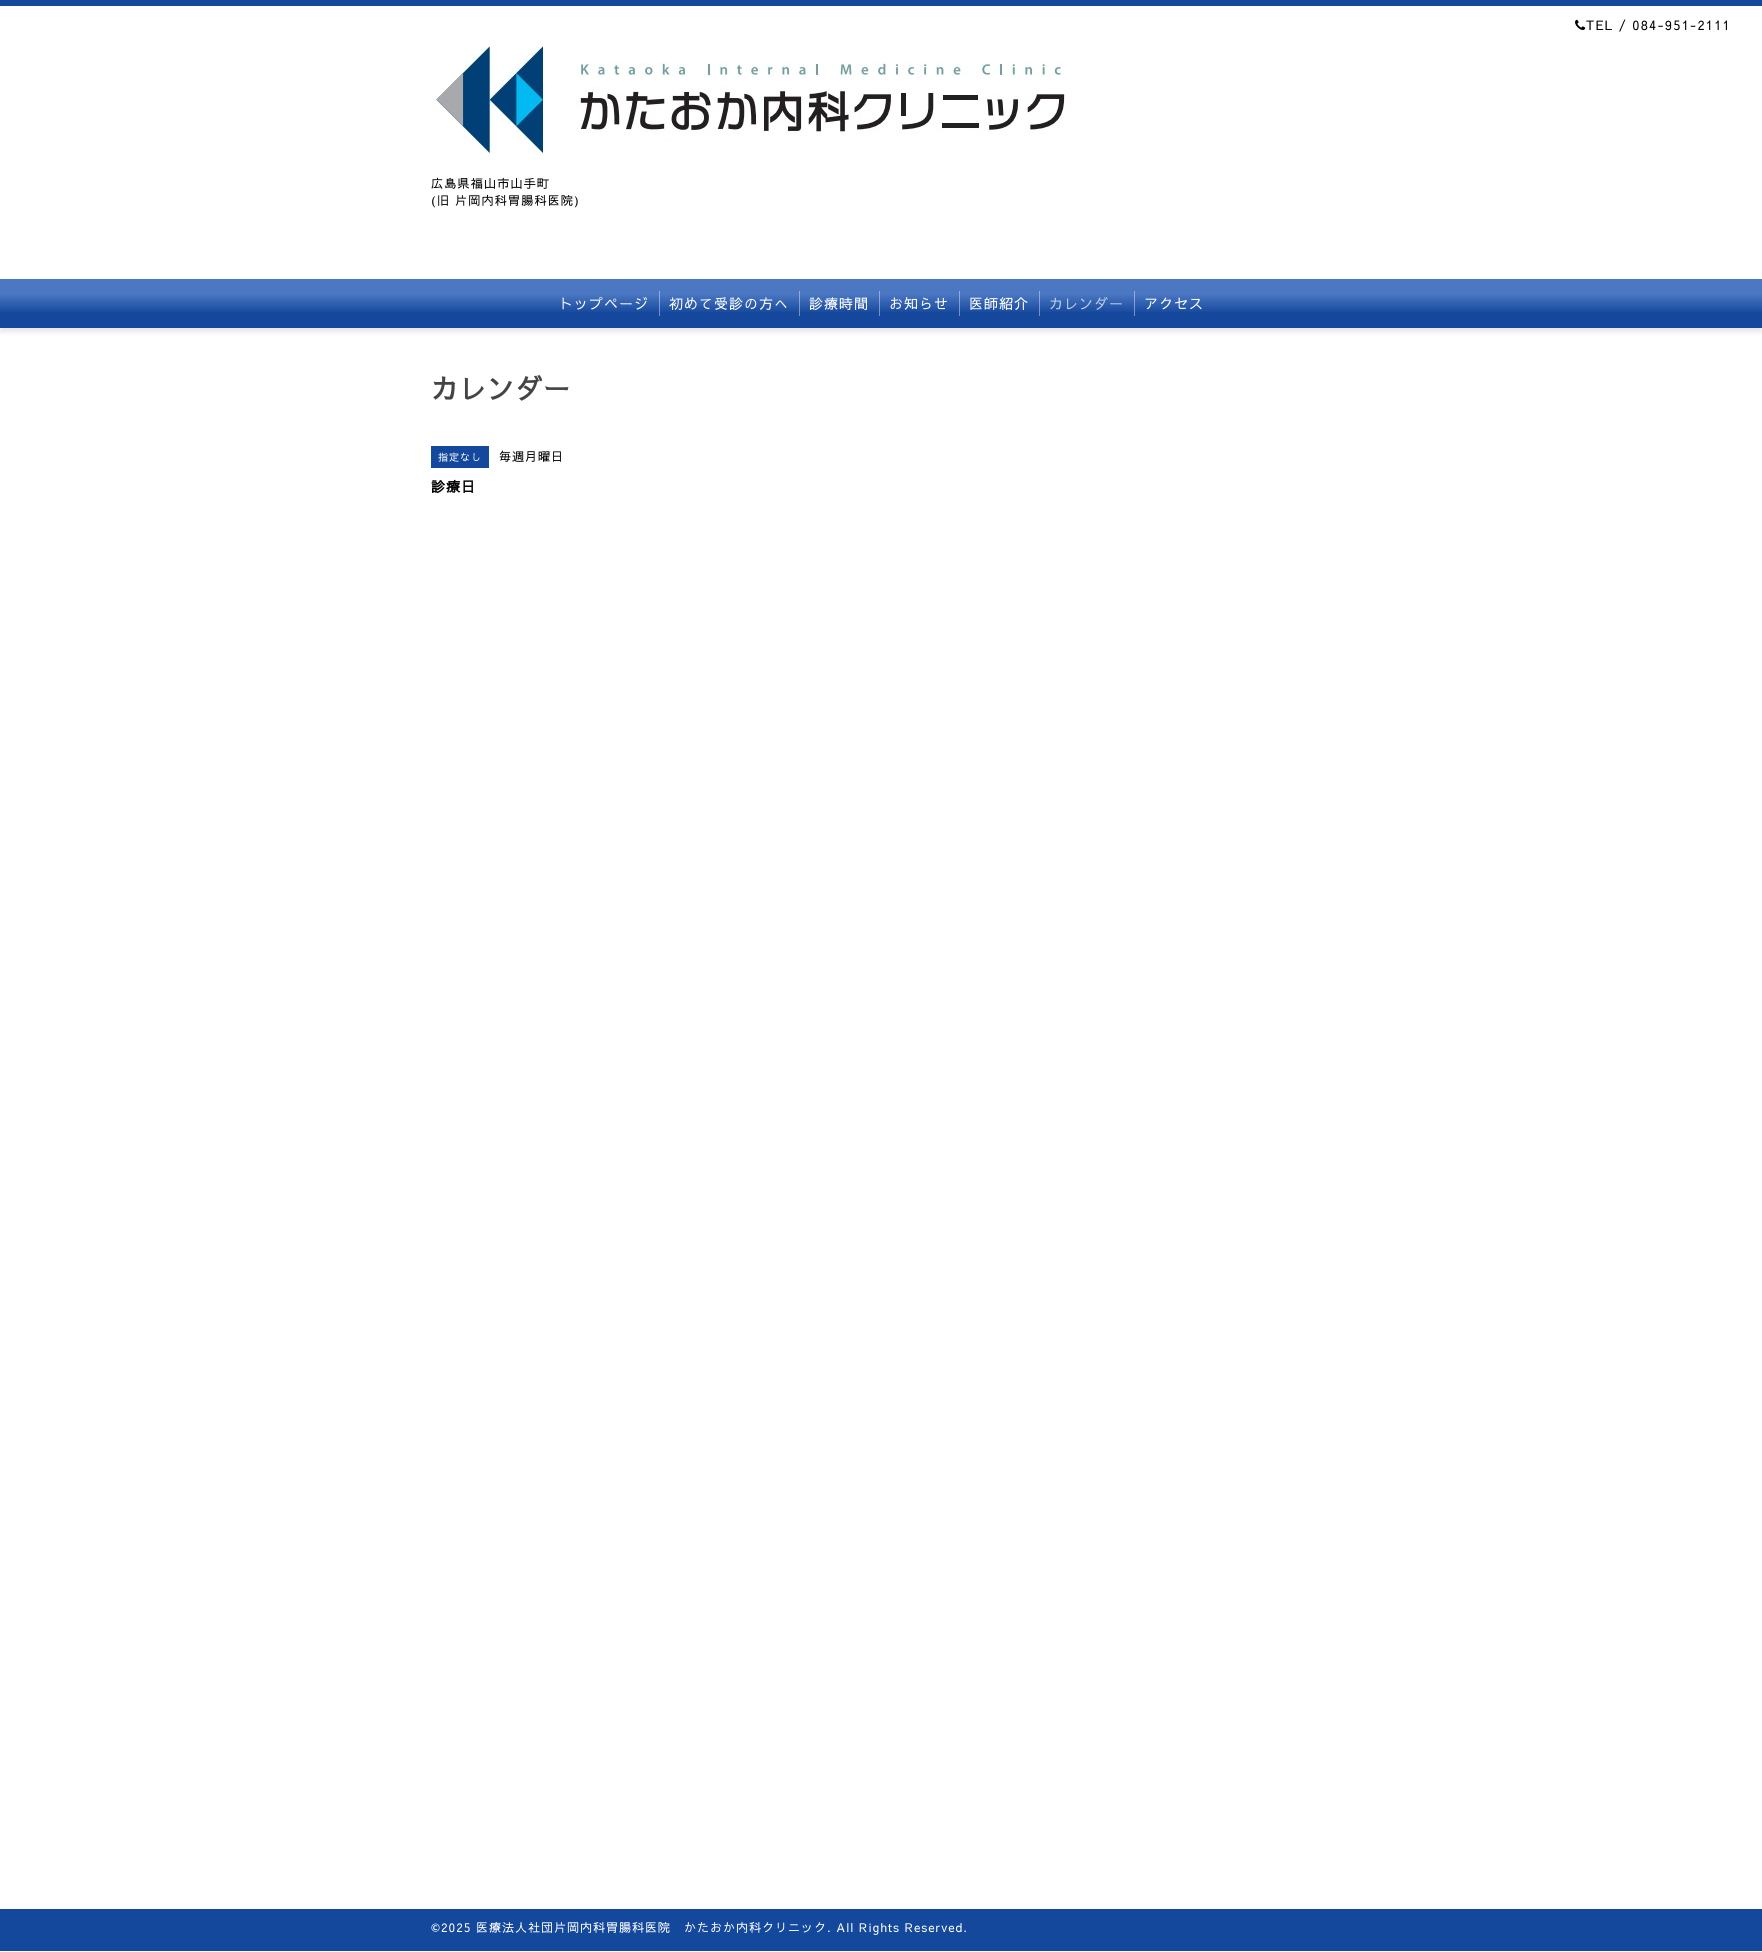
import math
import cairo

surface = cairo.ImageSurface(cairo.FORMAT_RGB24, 1762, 1952)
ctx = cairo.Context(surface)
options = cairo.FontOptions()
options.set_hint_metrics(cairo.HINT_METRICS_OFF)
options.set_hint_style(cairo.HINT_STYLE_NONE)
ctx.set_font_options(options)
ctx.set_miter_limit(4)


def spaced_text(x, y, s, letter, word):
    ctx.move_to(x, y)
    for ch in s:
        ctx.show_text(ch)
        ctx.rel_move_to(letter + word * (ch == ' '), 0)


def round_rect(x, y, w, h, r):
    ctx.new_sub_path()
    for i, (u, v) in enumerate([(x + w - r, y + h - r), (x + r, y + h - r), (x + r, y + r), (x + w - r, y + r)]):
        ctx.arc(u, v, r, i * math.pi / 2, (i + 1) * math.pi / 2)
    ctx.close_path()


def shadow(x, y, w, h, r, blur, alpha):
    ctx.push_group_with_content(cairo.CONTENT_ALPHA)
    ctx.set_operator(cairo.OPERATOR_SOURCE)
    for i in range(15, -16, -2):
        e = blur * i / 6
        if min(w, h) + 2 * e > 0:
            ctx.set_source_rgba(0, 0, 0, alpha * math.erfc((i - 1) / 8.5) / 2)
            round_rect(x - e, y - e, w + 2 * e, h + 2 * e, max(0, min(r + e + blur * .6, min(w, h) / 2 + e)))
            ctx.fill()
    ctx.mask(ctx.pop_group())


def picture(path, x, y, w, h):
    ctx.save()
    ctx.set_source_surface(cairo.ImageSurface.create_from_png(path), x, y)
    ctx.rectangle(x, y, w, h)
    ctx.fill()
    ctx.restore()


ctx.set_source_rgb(1, 1, 1)
ctx.paint()
ctx.set_source_rgb(0.082, 0.282, 0.616)
ctx.rectangle(0, 0, 1762, 6)
ctx.fill()
picture("img1.png", 1575, 19, 11, 11)
ctx.select_font_face("Sawarabi Gothic")
ctx.set_font_size(13)
ctx.set_source_rgb(0, 0, 0)
spaced_text(1586, 30, "TEL / 084-951-2111", 1.25, 0)
picture("img2.png", 431, 46, 634, 109)
ctx.set_font_size(12)
spaced_text(431, 188, "広島県福山市山手町", 1.25, 0)
spaced_text(431, 205, "(旧 片岡内科胃腸科医院)", 1.25, 0)
ctx.set_source_rgb(0, 0, 0)
shadow(0, 283, 1762, 49, 0, 2.5, 0.1)
gradient = cairo.LinearGradient(0, 279, 0, 328)
gradient.add_color_stop_rgba(0, 0.298, 0.471, 0.765, 1)
gradient.add_color_stop_rgba(0.3, 0.298, 0.471, 0.765, 1)
gradient.add_color_stop_rgba(0.7, 0.082, 0.282, 0.616, 1)
gradient.add_color_stop_rgba(1, 0.082, 0.282, 0.616, 1)
ctx.set_source(gradient)
ctx.rectangle(0, 279, 1762, 49)
ctx.fill()
gradient = cairo.LinearGradient(0, 279, 0, 328)
gradient.add_color_stop_rgba(0, 0.58, 0.682, 0.859, 1)
gradient.add_color_stop_rgba(0.3, 0.58, 0.682, 0.859, 1)
gradient.add_color_stop_rgba(0.7, 0.451, 0.569, 0.769, 1)
gradient.add_color_stop_rgba(1, 0.451, 0.569, 0.769, 1)
ctx.set_source(gradient)
ctx.rectangle(1134, 291, 1, 25)
ctx.fill()
ctx.rectangle(1039, 291, 1, 25)
ctx.fill()
ctx.rectangle(959, 291, 1, 25)
ctx.fill()
ctx.rectangle(879, 291, 1, 25)
ctx.fill()
ctx.rectangle(799, 291, 1, 25)
ctx.fill()
ctx.rectangle(659, 291, 1, 25)
ctx.fill()
ctx.set_font_size(14)
ctx.set_source_rgb(1, 1, 1)
spaced_text(559, 309, "トップページ", 1, 0)
spaced_text(669, 309, "初めて受診の方へ", 1, 0)
spaced_text(809, 309, "診療時間", 1, 0)
spaced_text(889, 309, "お知らせ", 1, 0)
spaced_text(969, 309, "医師紹介", 1, 0)
ctx.set_source_rgb(0.757, 0.812, 0.906)
spaced_text(1049, 309, "カレンダー", 1, 0)
ctx.set_source_rgb(1, 1, 1)
spaced_text(1144, 309, "アクセス", 1, 0)
ctx.select_font_face("Sawarabi Gothic", cairo.FONT_SLANT_NORMAL, cairo.FONT_WEIGHT_BOLD)
ctx.set_font_size(27)
ctx.set_source_rgb(0.267, 0.267, 0.267)
spaced_text(431, 399, "カレンダー", 1, 0)
ctx.set_source_rgb(0.082, 0.282, 0.616)
ctx.rectangle(431, 446, 58, 22)
ctx.fill()
ctx.select_font_face("Sawarabi Gothic")
ctx.set_font_size(10)
ctx.set_source_rgb(1, 1, 1)
spaced_text(438, 461, "指定なし", 1, 0)
ctx.set_font_size(12)
ctx.set_source_rgb(0, 0, 0)
spaced_text(499, 461, "毎週月曜日", 1, 0)
ctx.select_font_face("Sawarabi Gothic", cairo.FONT_SLANT_NORMAL, cairo.FONT_WEIGHT_BOLD)
ctx.set_font_size(14)
spaced_text(431, 492, "診療日", 1, 0)
ctx.set_source_rgb(0.082, 0.282, 0.616)
ctx.rectangle(0, 1909, 1762, 42)
ctx.fill()
ctx.select_font_face("Sawarabi Gothic")
ctx.set_font_size(12)
ctx.set_source_rgb(1, 1, 1)
spaced_text(431, 1932, "©2025 医療法人社団片岡内科胃腸科医院　かたおか内科クリニック. All Rights Reserved.", 1, 0)
surface.write_to_png("page.png")
